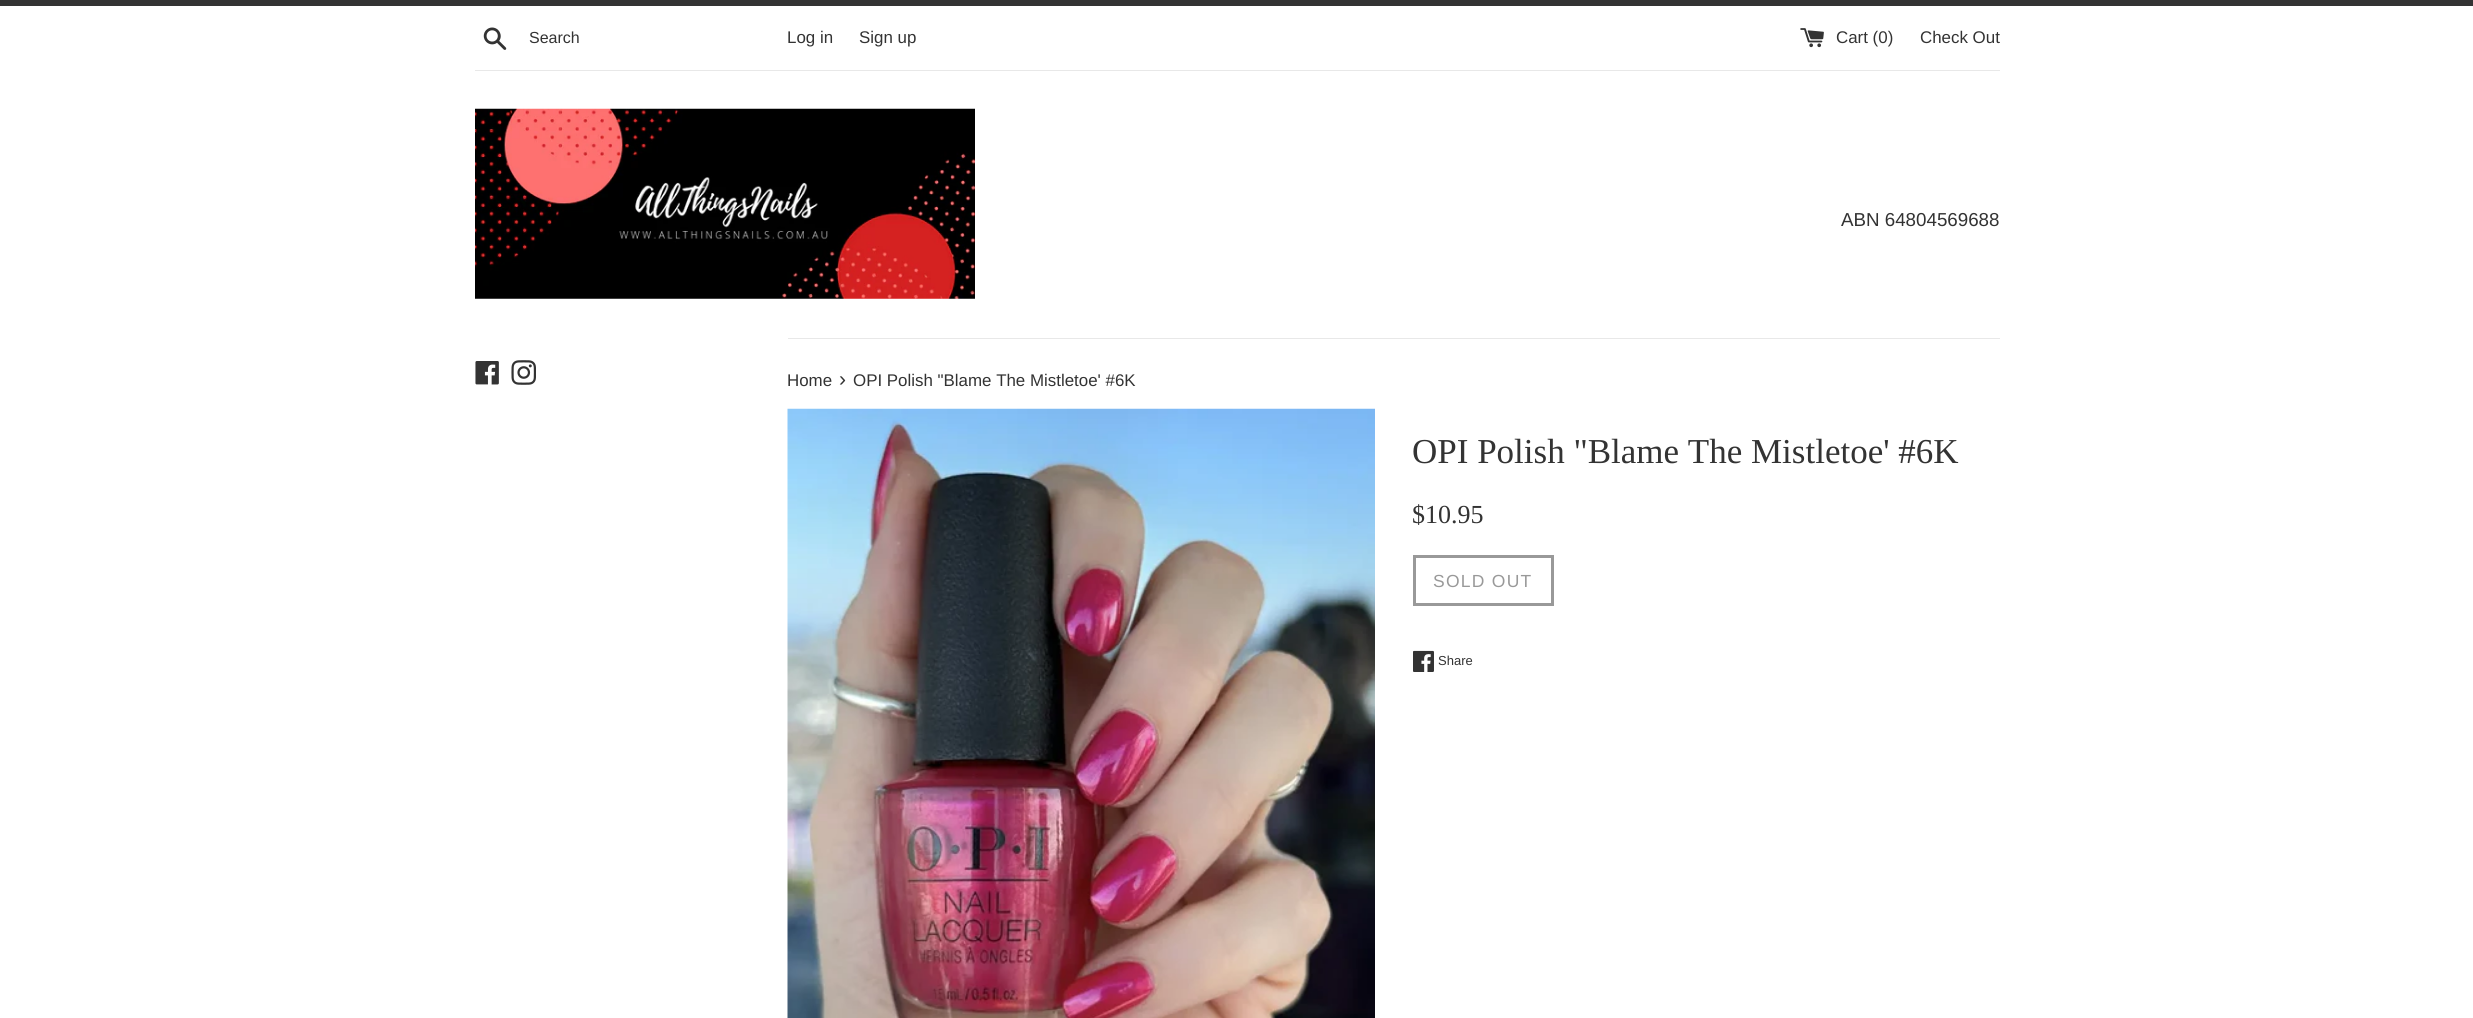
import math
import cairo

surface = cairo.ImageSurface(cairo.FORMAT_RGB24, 2473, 1018)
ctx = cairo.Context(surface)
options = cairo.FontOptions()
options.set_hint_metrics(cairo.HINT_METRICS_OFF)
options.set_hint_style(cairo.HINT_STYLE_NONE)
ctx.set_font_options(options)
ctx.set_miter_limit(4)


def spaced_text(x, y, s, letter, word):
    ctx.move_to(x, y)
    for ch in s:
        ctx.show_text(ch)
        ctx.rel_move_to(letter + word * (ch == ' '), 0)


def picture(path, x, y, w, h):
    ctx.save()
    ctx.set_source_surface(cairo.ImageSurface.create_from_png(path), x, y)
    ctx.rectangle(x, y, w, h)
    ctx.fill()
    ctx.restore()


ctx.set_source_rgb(1, 1, 1)
ctx.paint()
ctx.set_source_rgb(0.2, 0.2, 0.2)
ctx.rectangle(0, 0, 2473, 6)
ctx.fill()
picture("img1.png", 483, 27, 24, 23)
ctx.select_font_face("Liberation Sans")
ctx.set_font_size(16)
ctx.move_to(529, 43)
ctx.show_text("Search")
ctx.set_font_size(16.9)
ctx.move_to(787, 43)
ctx.show_text("Log in")
ctx.move_to(859, 43)
ctx.show_text("Sign up")
picture("img2.png", 1800, 28, 24, 20)
ctx.move_to(1836, 43)
ctx.show_text("Cart (0)")
ctx.move_to(1920, 43)
ctx.show_text("Check Out")
ctx.set_source_rgb(0.91, 0.91, 0.91)
ctx.rectangle(475, 70, 1525, 1)
ctx.fill()
picture("img3.png", 475, 108, 500, 191)
ctx.set_font_size(18.75)
ctx.set_source_rgb(0.2, 0.2, 0.2)
ctx.move_to(1841, 226)
ctx.show_text("ABN 64804569688")
picture("img4.png", 475, 361, 24, 24)
picture("img5.png", 511, 360, 25, 25)
ctx.set_source_rgb(0.91, 0.91, 0.91)
ctx.rectangle(788, 338, 1212, 1)
ctx.fill()
ctx.set_font_size(16.9)
ctx.set_source_rgb(0.2, 0.2, 0.2)
ctx.move_to(787, 386)
ctx.show_text("Home")
ctx.set_font_size(21)
ctx.move_to(839, 386)
ctx.show_text("›")
ctx.set_font_size(16.9)
ctx.move_to(853, 386)
ctx.show_text("OPI Polish \"Blame The Mistletoe' #6K")
picture("img6.png", 787, 408, 588, 610)
ctx.select_font_face("Liberation Serif")
ctx.set_font_size(35)
ctx.move_to(1412, 463)
ctx.show_text("OPI Polish \"Blame The Mistletoe' #6K")
ctx.set_font_size(26)
ctx.move_to(1412, 523)
ctx.show_text("$10.95")
ctx.rectangle(1414.5, 556.5, 138, 48)
ctx.set_source_rgb(0.6, 0.6, 0.6)
ctx.set_line_width(3)
ctx.stroke()
ctx.select_font_face("Liberation Sans")
ctx.set_font_size(17.5)
spaced_text(1433, 587, "SOLD OUT", 1.25, 0)
picture("img7.png", 1413, 650, 21, 22)
ctx.set_font_size(13)
ctx.set_source_rgb(0.2, 0.2, 0.2)
ctx.move_to(1438, 665)
ctx.show_text("Share")
surface.write_to_png("page.png")
